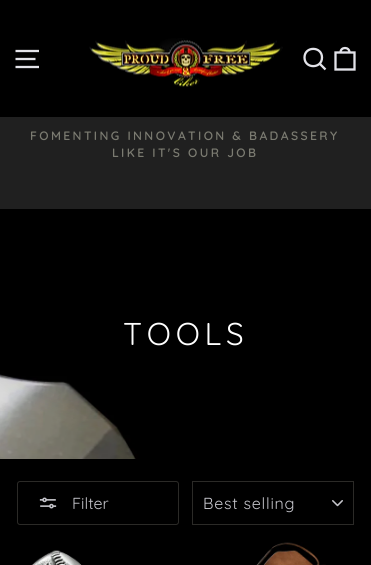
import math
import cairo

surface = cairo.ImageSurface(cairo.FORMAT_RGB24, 371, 565)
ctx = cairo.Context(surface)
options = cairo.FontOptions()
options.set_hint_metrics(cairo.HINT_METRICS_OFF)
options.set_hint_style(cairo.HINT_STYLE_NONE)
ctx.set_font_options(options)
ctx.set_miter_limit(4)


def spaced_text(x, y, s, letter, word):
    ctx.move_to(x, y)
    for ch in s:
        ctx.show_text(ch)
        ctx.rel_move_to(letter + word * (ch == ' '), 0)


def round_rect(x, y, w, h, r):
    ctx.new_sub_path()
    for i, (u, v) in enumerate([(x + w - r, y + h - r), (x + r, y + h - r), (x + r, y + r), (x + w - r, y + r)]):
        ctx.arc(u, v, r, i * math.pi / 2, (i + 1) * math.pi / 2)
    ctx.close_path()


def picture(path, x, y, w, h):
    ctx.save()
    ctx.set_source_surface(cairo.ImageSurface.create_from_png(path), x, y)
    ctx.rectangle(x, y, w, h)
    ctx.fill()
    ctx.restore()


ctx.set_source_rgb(0, 0, 0)
ctx.paint()
ctx.new_path()
ctx.move_to(15.5, 51)
ctx.line_to(39, 51)
ctx.move_to(15.5, 59)
ctx.line_to(35.5, 59)
ctx.move_to(15.5, 67)
ctx.line_to(39, 67)
ctx.set_source_rgb(0.89, 0.89, 0.914)
ctx.set_line_width(2.3)
ctx.stroke()
picture("img1.png", 89, 38, 194, 49)
ctx.new_path()
ctx.move_to(322, 57.5)
ctx.curve_to(322, 69, 304.5, 69, 304.5, 57.5)
ctx.curve_to(304.5, 46, 322, 46, 322, 57.5)
ctx.close_path()
ctx.move_to(325.5, 69.5)
ctx.line_to(319.5, 63.5)
ctx.move_to(335.5, 52.5)
ctx.line_to(354.5, 52.5)
ctx.line_to(354.5, 69.5)
ctx.line_to(335.5, 69.5)
ctx.close_path()
ctx.move_to(340.5, 52.5)
ctx.curve_to(340.5, 46.5, 349.5, 46.5, 349.5, 52.5)
ctx.stroke()
ctx.set_source_rgb(0.125, 0.125, 0.125)
ctx.rectangle(0, 117, 371, 92)
ctx.fill()
ctx.select_font_face("Quicksand SemiBold")
ctx.set_font_size(12.15)
ctx.set_source_rgb(0.482, 0.482, 0.443)
spaced_text(30, 140, "FOMENTING INNOVATION & BADASSERY", 2.4, 0)
spaced_text(112, 157, "LIKE IT'S OUR JOB", 2.4, 0)
picture("img2.png", 0, 209, 371, 250)
ctx.select_font_face("Quicksand")
ctx.set_font_size(31.5)
ctx.set_source_rgb(1, 1, 1)
spaced_text(123, 345, "TOOLS", 4.75, 0)
gradient = cairo.RadialGradient(0, 0, 0, 0, 0, 1)
gradient.set_matrix(cairo.Matrix(1 / 371, 0, 0, 1 / 168, -1 * 186 / 371, -1 * 334 / 168))
gradient.add_color_stop_rgba(0, 0, 0, 0, 0.3)
gradient.add_color_stop_rgba(0.6, 0, 0, 0, 0)
ctx.set_source(gradient)
ctx.rectangle(0, 377, 102, 42)
ctx.fill()
round_rect(17.5, 481.5, 161, 43, 2.5)
ctx.set_source_rgb(0.169, 0.165, 0.153)
ctx.set_line_width(1)
ctx.stroke()
picture("img3.png", 39, 497, 18, 12)
ctx.set_font_size(16)
ctx.set_source_rgb(0.776, 0.776, 0.8)
ctx.move_to(72, 509)
ctx.show_text("Filter")
picture("img4.png", 332, 500, 11, 7)
ctx.rectangle(192.5, 481.5, 161, 43)
ctx.set_source_rgb(0.169, 0.165, 0.153)
ctx.stroke()
ctx.set_source_rgb(0.776, 0.776, 0.8)
spaced_text(203, 509, "Best selling", 0.75, 0)
picture("img5.png", 31, 550, 51, 15)
picture("img6.png", 256, 542, 70, 23)
surface.write_to_png("page.png")
